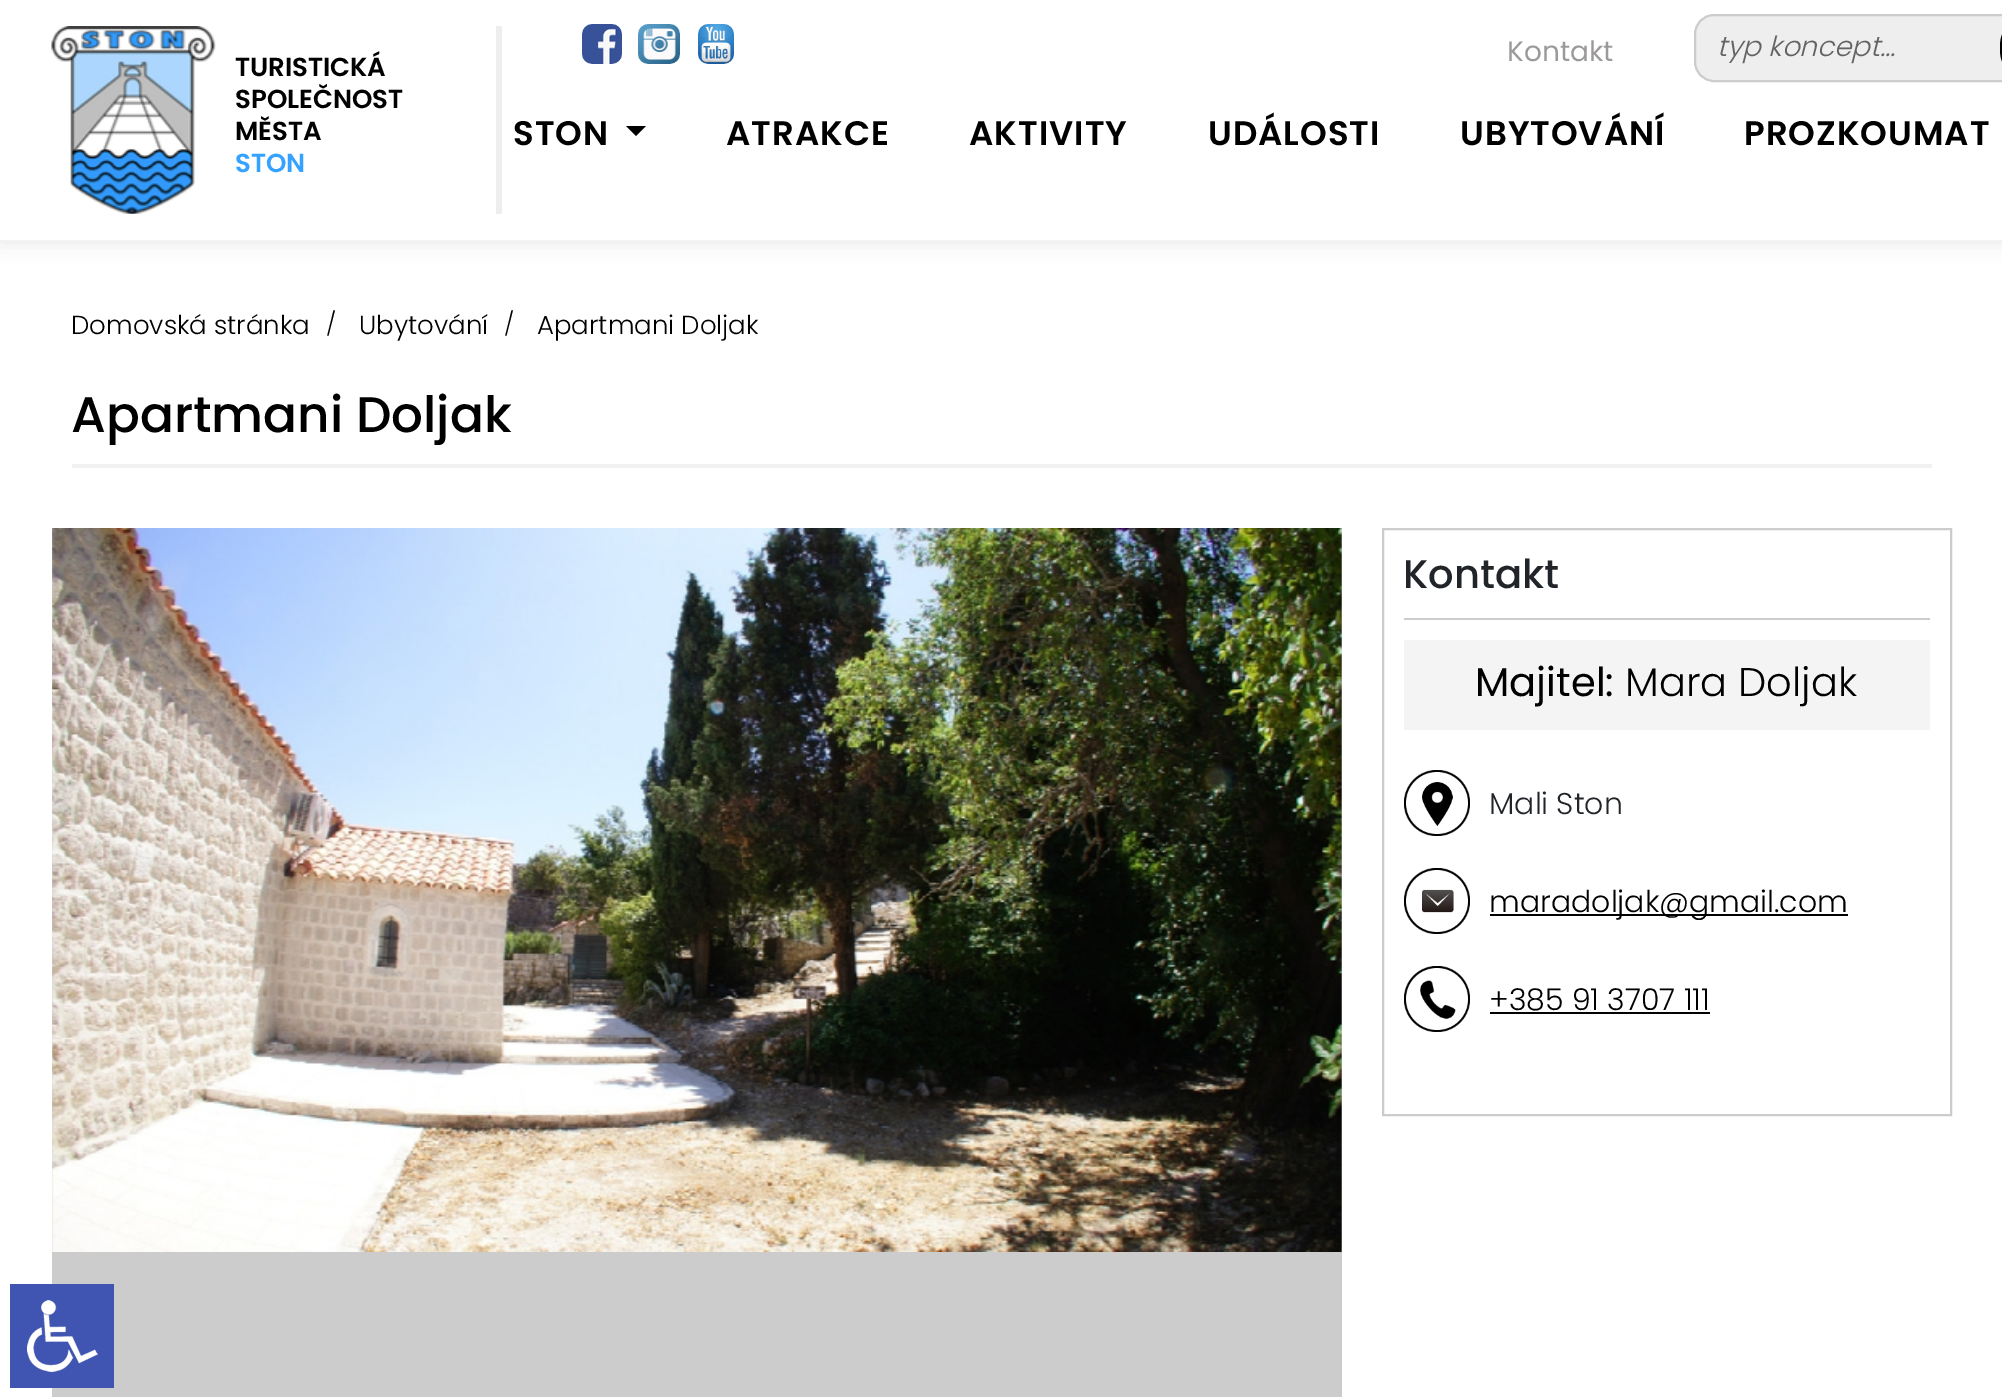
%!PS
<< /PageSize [2002 1397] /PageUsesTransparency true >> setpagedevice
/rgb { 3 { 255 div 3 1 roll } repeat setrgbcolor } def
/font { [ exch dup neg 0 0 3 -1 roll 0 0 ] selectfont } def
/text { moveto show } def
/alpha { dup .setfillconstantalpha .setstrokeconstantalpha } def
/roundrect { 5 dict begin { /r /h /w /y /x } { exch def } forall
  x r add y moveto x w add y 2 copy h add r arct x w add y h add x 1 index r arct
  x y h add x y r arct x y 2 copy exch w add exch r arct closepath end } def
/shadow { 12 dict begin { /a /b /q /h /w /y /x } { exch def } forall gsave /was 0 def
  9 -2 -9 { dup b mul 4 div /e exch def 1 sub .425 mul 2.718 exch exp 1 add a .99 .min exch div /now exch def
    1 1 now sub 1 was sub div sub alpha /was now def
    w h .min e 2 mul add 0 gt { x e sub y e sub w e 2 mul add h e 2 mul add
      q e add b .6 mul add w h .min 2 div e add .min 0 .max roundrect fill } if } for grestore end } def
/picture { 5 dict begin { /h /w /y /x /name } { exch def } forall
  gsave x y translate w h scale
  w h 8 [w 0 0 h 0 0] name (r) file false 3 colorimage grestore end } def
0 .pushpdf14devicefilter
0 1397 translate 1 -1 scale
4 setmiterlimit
255 255 255 rgb
0 0 2002 1397 rectfill
0 0 0 rgb
0 2 2002 240 0 10 0.1 shadow
255 255 255 rgb
0 0 2002 240 rectfill
238 238 238 rgb
496 26 6 188 rectfill
(img_01.rgb) 51 26 165 188 picture
(img_02.rgb) 582 24 40 40 picture
(img_03.rgb) 638 24 42 40 picture
(img_04.rgb) 698 24 36 40 picture
1695 15 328 66 19 roundrect gsave fill grestore
204 204 204 rgb
2 setlinewidth
stroke
0 0 0 rgb
2000 12 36 72 34 roundrect fill
626 126 moveto 20 0 rlineto -10 10 rlineto closepath fill
241 241 241 rgb
72 464 1860 4 rectfill
204 204 204 rgb
52 528 1290 869 rectfill
(img_05.rgb) 52 528 1290 724 picture
1383 529 568 586 rectstroke
1404 618 526 2 rectfill
244 244 244 rgb
1404 640 526 90 rectfill
(img_06.rgb) 1404 770 66 66 picture
(img_07.rgb) 1404 868 66 66 picture
0 0 0 rgb
1490 914 358 2 rectfill
(img_08.rgb) 1404 966 66 66 picture
1490 1012 220 2 rectfill
(img_09.rgb) 10 1284 104 104 picture
/Poppins-SemiBold 26 font
(TURISTICKÁ) 235 76 text
(SPOLEČNOST) 235 108 text
(MĚSTA) 235 140 text
53 162 255 rgb
(STON) 235 172 text
/Poppins-Regular 28 font
155 153 153 rgb
(Kontakt) 1507 61 text
/Poppins-LightItalic 27.75 font
99 99 99 rgb
(typ koncept...) 1717 56 text
/Poppins-SemiBold 34 font
0 0 0 rgb
513 145 moveto 1 0 (STON) ashow
726 145 moveto 1 0 (ATRAKCE) ashow
969 145 moveto 1 0 (AKTIVITY) ashow
1208 145 moveto 1 0 (UDÁLOSTI) ashow
1460 145 moveto 1 0 (UBYTOVÁNÍ) ashow
1744 145 moveto 1 0 (PROZKOUMAT) ashow
/Poppins-Light 26 font
(Domovská stránka) 71 334 text
/Poppins-Light 23 font
(/) 326 332 text
/Poppins-Light 26 font
(Ubytování) 359 334 text
/Poppins-Light 23 font
(/) 504 332 text
/Poppins-Light 26 font
(Apartmani Doljak) 537 334 text
/Poppins-Medium 50 font
(Apartmani Doljak) 71 432 text
/Poppins-Medium 40 font
33 37 41 rgb
(Kontakt) 1403 588 text
/Poppins-Regular 40 font
0 0 0 rgb
(Majitel:) 1475 696 text
/Poppins-Light 40 font
(Mara Doljak) 1625 696 text
/Poppins-Light 30 font
33 37 41 rgb
(Mali Ston) 1489 814 text
0 0 0 rgb
(maradoljak@gmail.com) 1489 912 text
(+385 91 3707 111) 1489 1010 text
.poppdf14devicefilter showpage
